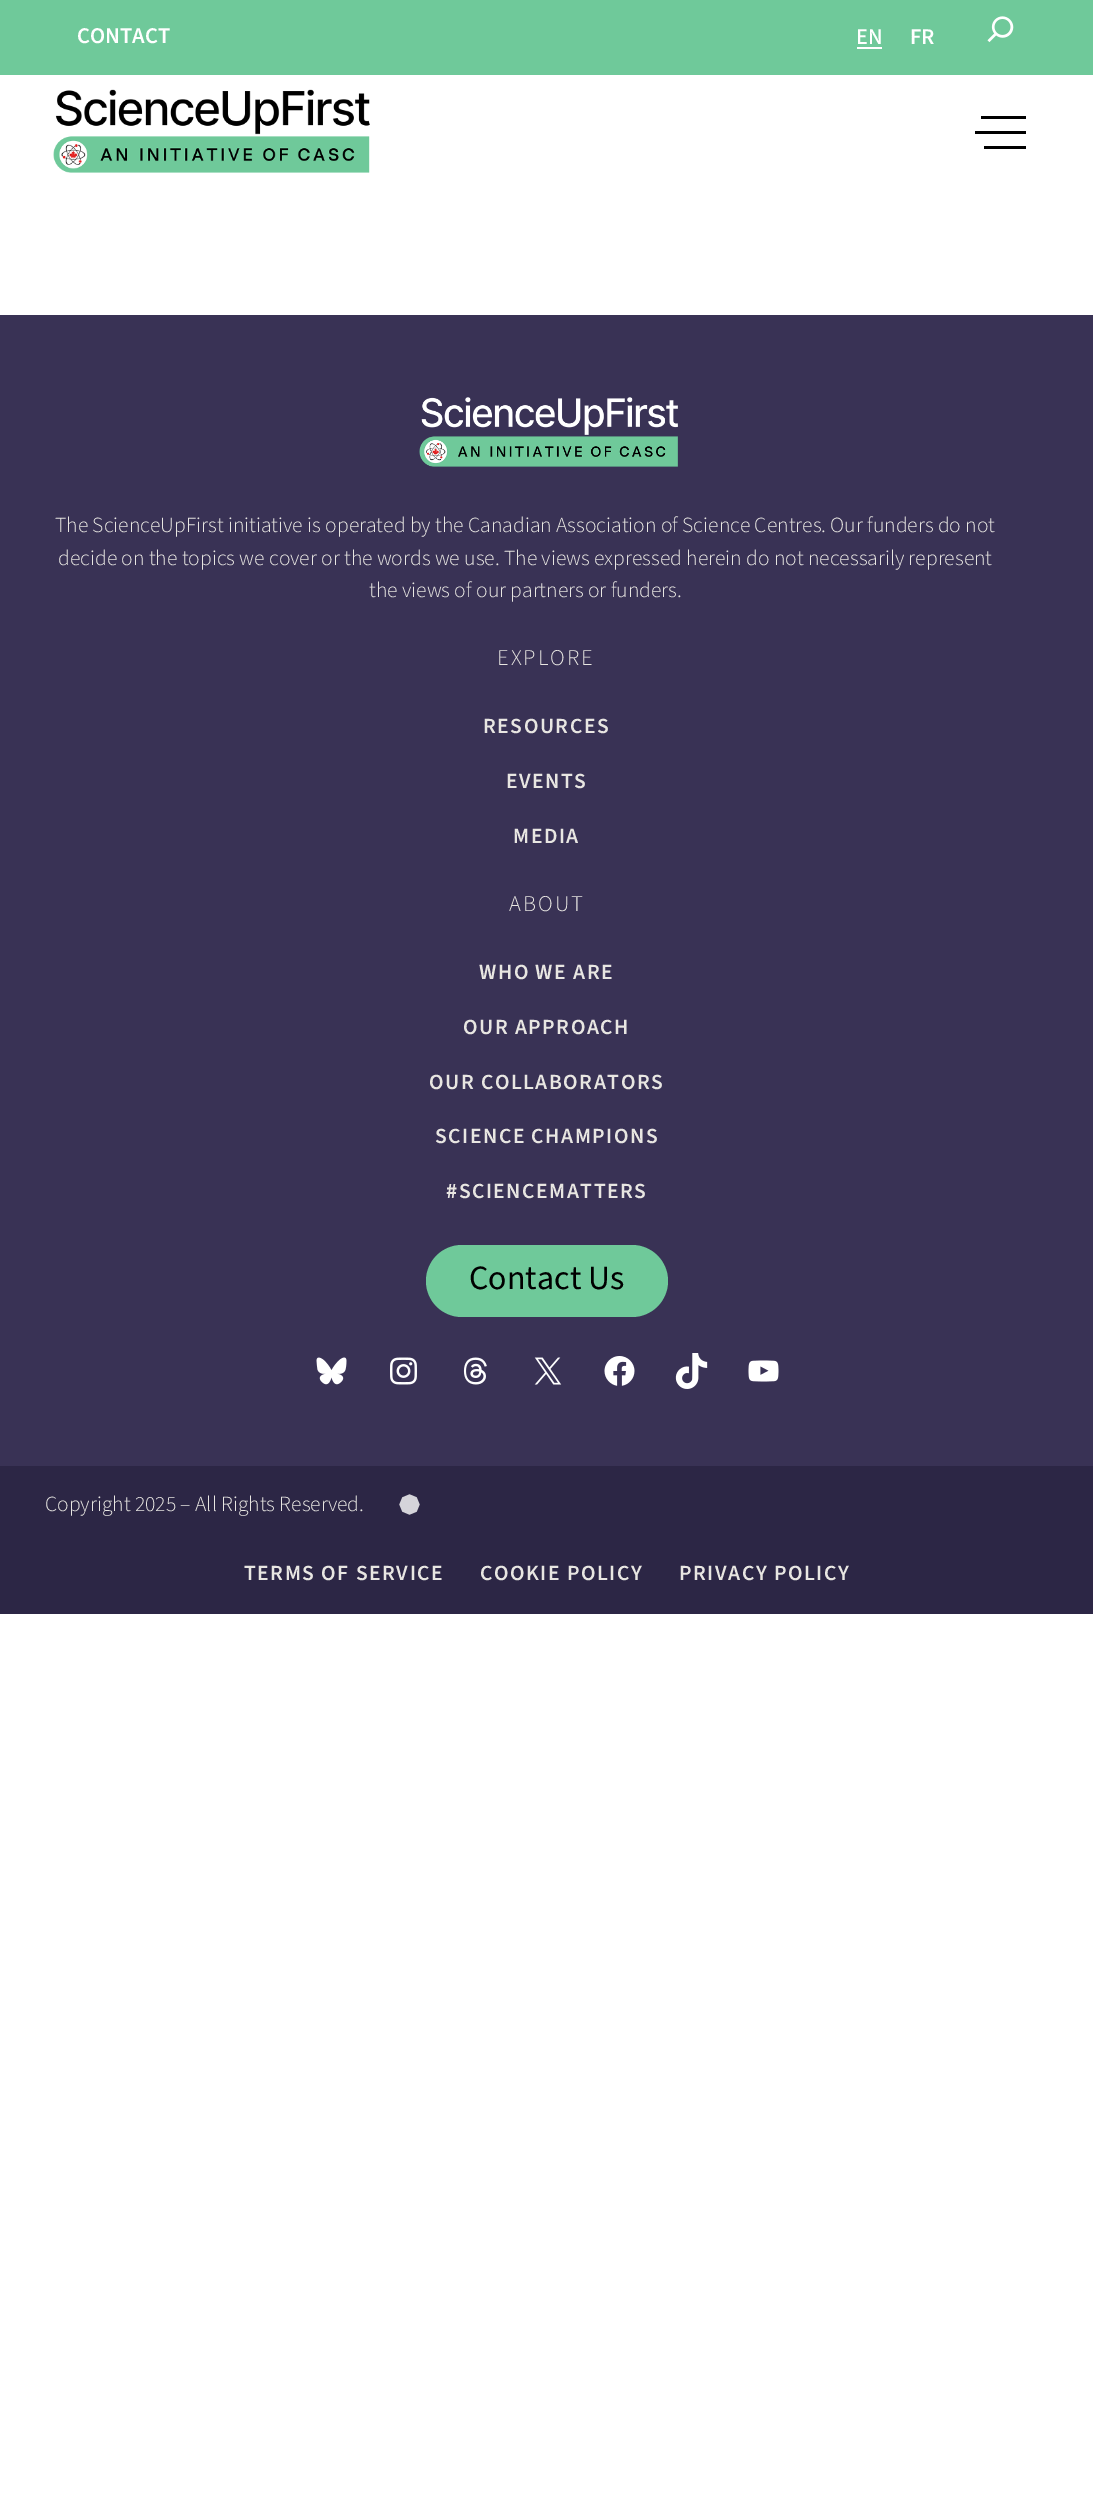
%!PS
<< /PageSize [1093 2508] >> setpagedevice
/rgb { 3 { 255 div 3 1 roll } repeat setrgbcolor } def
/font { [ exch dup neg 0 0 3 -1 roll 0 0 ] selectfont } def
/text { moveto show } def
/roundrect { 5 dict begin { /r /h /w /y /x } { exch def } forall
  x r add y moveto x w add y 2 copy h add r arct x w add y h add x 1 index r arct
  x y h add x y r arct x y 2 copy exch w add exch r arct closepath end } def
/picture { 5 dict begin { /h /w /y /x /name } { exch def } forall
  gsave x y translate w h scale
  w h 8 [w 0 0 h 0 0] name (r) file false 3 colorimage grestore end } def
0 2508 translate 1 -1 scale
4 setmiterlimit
255 255 255 rgb
0 0 1093 2508 rectfill
111 201 154 rgb
0 0 1093 75 rectfill
255 255 255 rgb
857 47 25 2 rectfill
(img_01.rgb) 987 16 27 27 picture
(img_02.rgb) 53 89 317 84 picture
0 0 0 rgb
975 131 51 3 rectfill
981 116 45 3 rectfill
984 146 42 3 rectfill
57 50 85 rgb
0 315 1093 1151 rectfill
(img_03.rgb) 419 397 259 70 picture
111 201 154 rgb
426 1245 242 72 36 roundrect fill
(img_04.rgb) 316 1357 31 28 picture
(img_05.rgb) 390 1357 27 28 picture
(img_06.rgb) 463 1357 24 28 picture
(img_07.rgb) 534 1357 28 28 picture
(img_08.rgb) 604 1356 31 30 picture
(img_09.rgb) 675 1353 33 36 picture
(img_10.rgb) 748 1360 31 22 picture
44 38 69 rgb
0 1466 1093 148 rectfill
(img_11.rgb) 399 1494 21 21 picture
/SourceSans3-SemiBold 22.5 font
255 255 255 rgb
(CONTACT) 77 43 text
/SourceSans3-Medium 22.5 font
(EN) 856 44 text
/SourceSans3-SemiBold 22.5 font
(FR) 910 44 text
/SourceSans3-Light 21.6 font
232 230 226 rgb
(The ScienceUpFirst initiative is operated by the Canadian Association of Science Centres. Our funders do not) 55 532 text
(decide on the topics we cover or the words we use. The views expressed herein do not necessarily represent) 58 565 text
(the views of our partners or funders.) 369 597 text
/SourceSans3-Light 22.5 font
497 665 moveto 2 0 (EXPLORE) ashow
/SourceSans3-SemiBold 21.6 font
483 733 moveto 1.5 0 (RESOURCES) ashow
506 788 moveto 1.5 0 (EVENTS) ashow
513 843 moveto 1.5 0 (MEDIA) ashow
/SourceSans3-Light 22.5 font
509 911 moveto 2 0 (ABOUT) ashow
/SourceSans3-SemiBold 21.6 font
479 979 moveto 1.5 0 (WHO WE ARE) ashow
463 1034 moveto 1.5 0 (OUR APPROACH) ashow
429 1089 moveto 1.5 0 (OUR COLLABORATORS) ashow
435 1143 moveto 1.5 0 (SCIENCE CHAMPIONS) ashow
446 1198 moveto 1.5 0 (#SCIENCEMATTERS) ashow
/SourceSans3-Regular 34 font
0 0 0 rgb
(Contact Us) 469 1289 text
/SourceSans3-Light 21.6 font
232 230 226 rgb
(Copyright 2025 – All Rights Reserved.) 45 1511 text
/SourceSans3-SemiBold 21.6 font
244 1580 moveto 1.5 0 (TERMS OF SERVICE) ashow
480 1580 moveto 1.5 0 (COOKIE POLICY) ashow
679 1580 moveto 1.5 0 (PRIVACY POLICY) ashow
showpage
